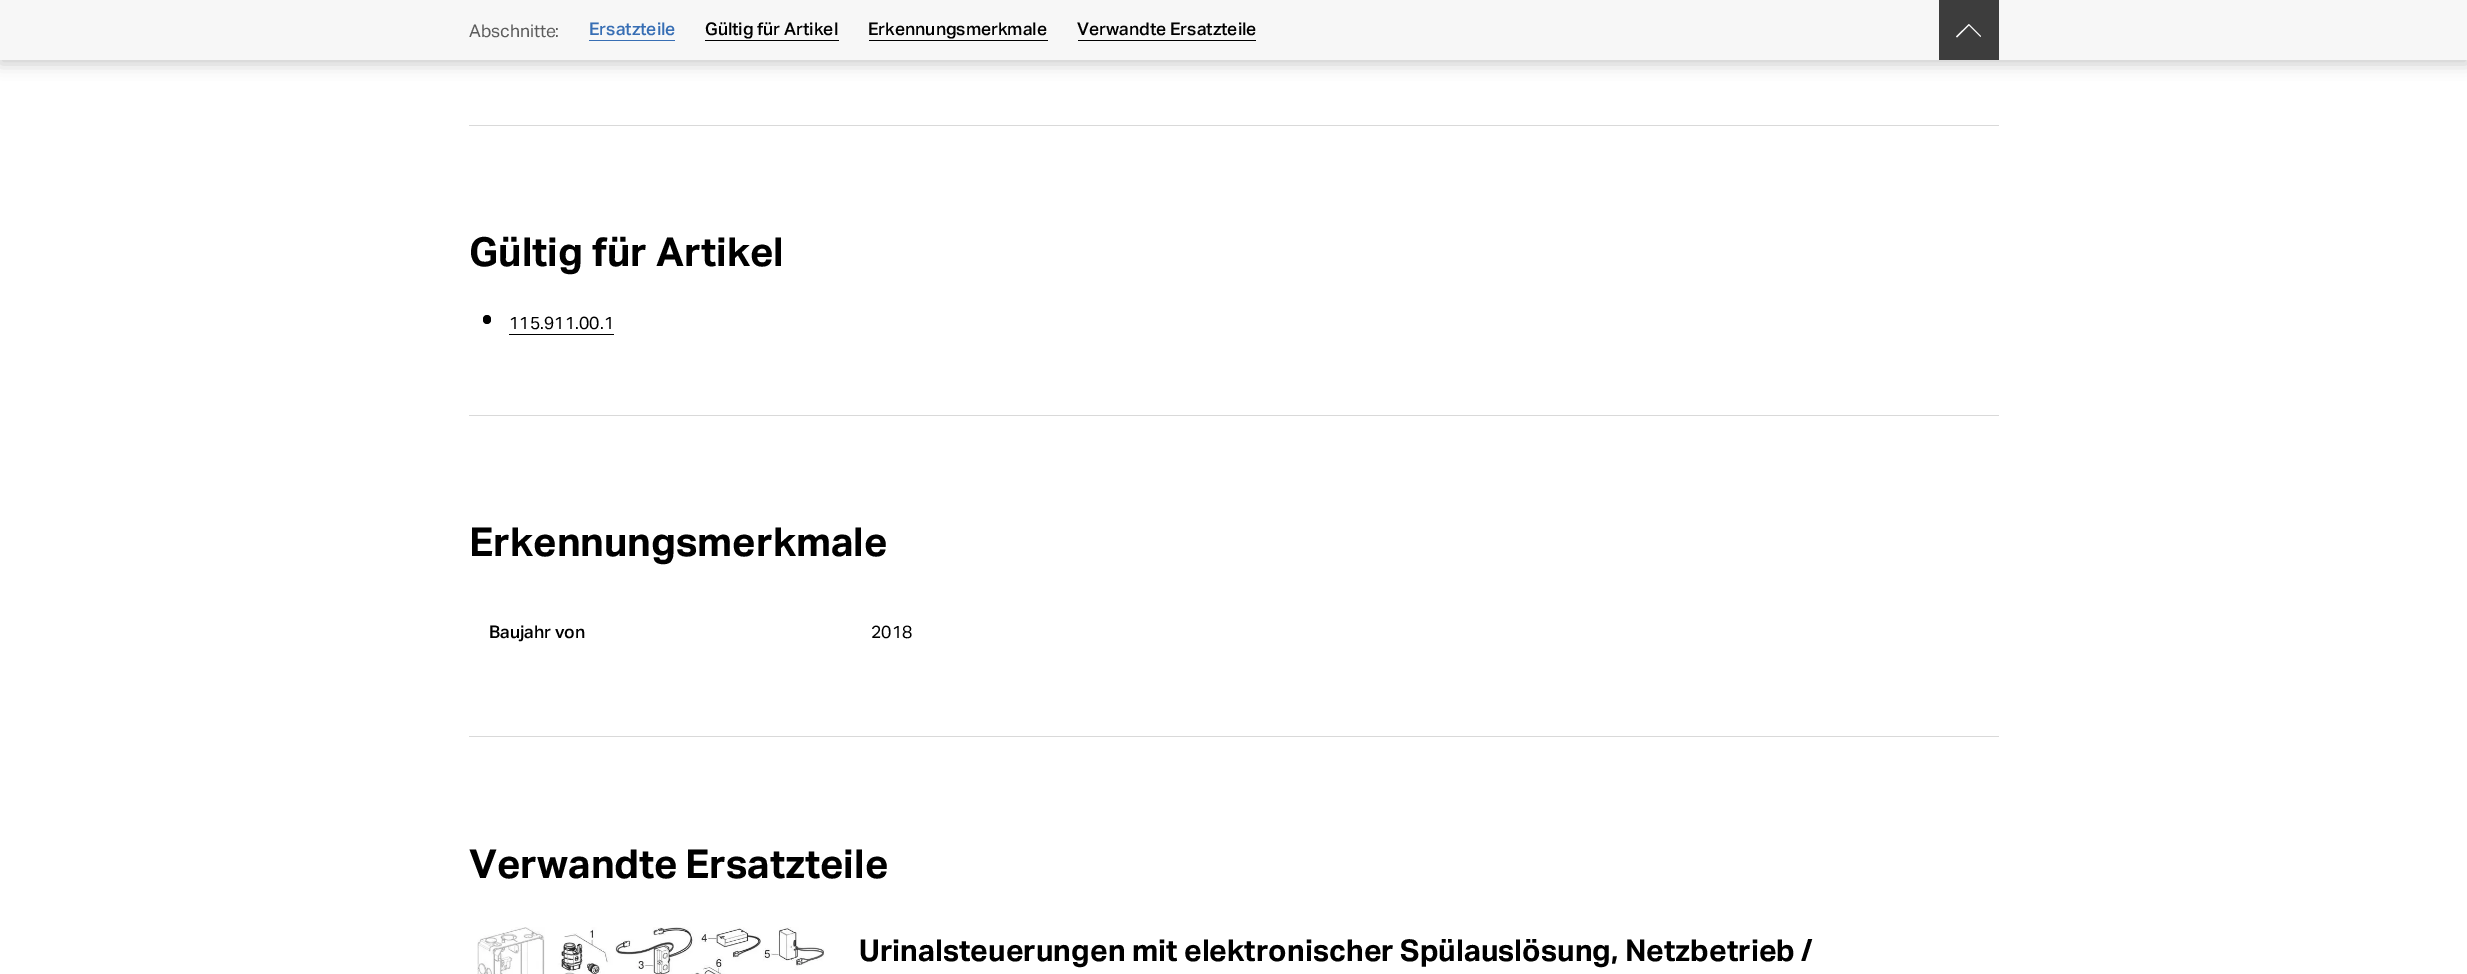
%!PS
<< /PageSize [2467 974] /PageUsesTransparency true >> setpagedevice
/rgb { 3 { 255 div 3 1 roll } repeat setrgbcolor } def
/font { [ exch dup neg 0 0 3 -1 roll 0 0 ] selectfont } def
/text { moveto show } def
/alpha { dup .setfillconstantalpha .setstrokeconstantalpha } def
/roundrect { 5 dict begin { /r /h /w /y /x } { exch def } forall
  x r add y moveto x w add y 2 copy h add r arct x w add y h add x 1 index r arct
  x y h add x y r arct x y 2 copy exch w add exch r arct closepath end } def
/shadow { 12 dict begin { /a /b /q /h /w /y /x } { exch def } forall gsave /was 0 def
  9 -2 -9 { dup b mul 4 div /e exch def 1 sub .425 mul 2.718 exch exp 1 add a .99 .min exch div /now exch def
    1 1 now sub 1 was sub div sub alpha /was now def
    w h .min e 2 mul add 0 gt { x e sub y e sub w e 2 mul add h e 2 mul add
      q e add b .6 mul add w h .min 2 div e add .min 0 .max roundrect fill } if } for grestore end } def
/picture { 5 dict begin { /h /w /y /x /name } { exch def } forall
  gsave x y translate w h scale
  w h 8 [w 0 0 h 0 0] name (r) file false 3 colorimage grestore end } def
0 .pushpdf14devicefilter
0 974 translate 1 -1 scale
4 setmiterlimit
255 255 255 rgb
0 0 2467 974 rectfill
0 0 0 rgb
0 4 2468 60 0 7.5 0.2 shadow
247 247 247 rgb
0 0 2467 60 rectfill
55 110 180 rgb
589 40 86 1 rectfill
0 0 0 rgb
705 40 134 1 rectfill
869 40 179 1 rectfill
1078 40 178 1 rectfill
61 61 61 rgb
1939 0 60 60 rectfill
255 255 255 rgb
1980.5 37 moveto 0.5 -1 rlineto -12 -12 rlineto -13 12.5 rlineto 1 1 rlineto 12 -12 rlineto closepath eofill
217 217 217 rgb
469 125 1530 1 rectfill
0 0 0 rgb
483 315 8 9 4 roundrect fill
509 334 105 1 rectfill
217 217 217 rgb
469 415 1530 1 rectfill
469 736 1530 1 rectfill
(img_01.rgb) 477 927 348 47 picture
/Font-Regular 17.5 font
92 92 92 rgb
(Abschnitte) 469 37 text
(:) 555 37 text
/Font-Medium 17.5 font
55 110 180 rgb
(Ersatzteile) 589 35 text
0 0 0 rgb
(Gültig für Artikel) 705 35 text
(Erkennungsmerkmale) 868 35 text
(Verwandte Ersatzteile) 1077 35 text
/Font-Bold 40 font
(Gültig für Artikel) 469 266 text
/Font-Regular 17.5 font
(115.911.00.1) 509 329 text
/Font-Bold 40 font
(Erkennungsmerkmale) 469 556 text
/Font-Medium 17.5 font
(Baujahr von) 489 638 text
/Font-Regular 17.5 font
(2018) 871 638 text
/Font-Bold 40 font
469 878 moveto -2 0 32 (Verwandte Ersatzteile) widthshow
/Font-Bold 30 font
859 961 moveto -0.25 0 32 (Urinalsteuerungen mit elektronischer Spülauslösung, Netzbetrieb /) widthshow
.poppdf14devicefilter showpage
